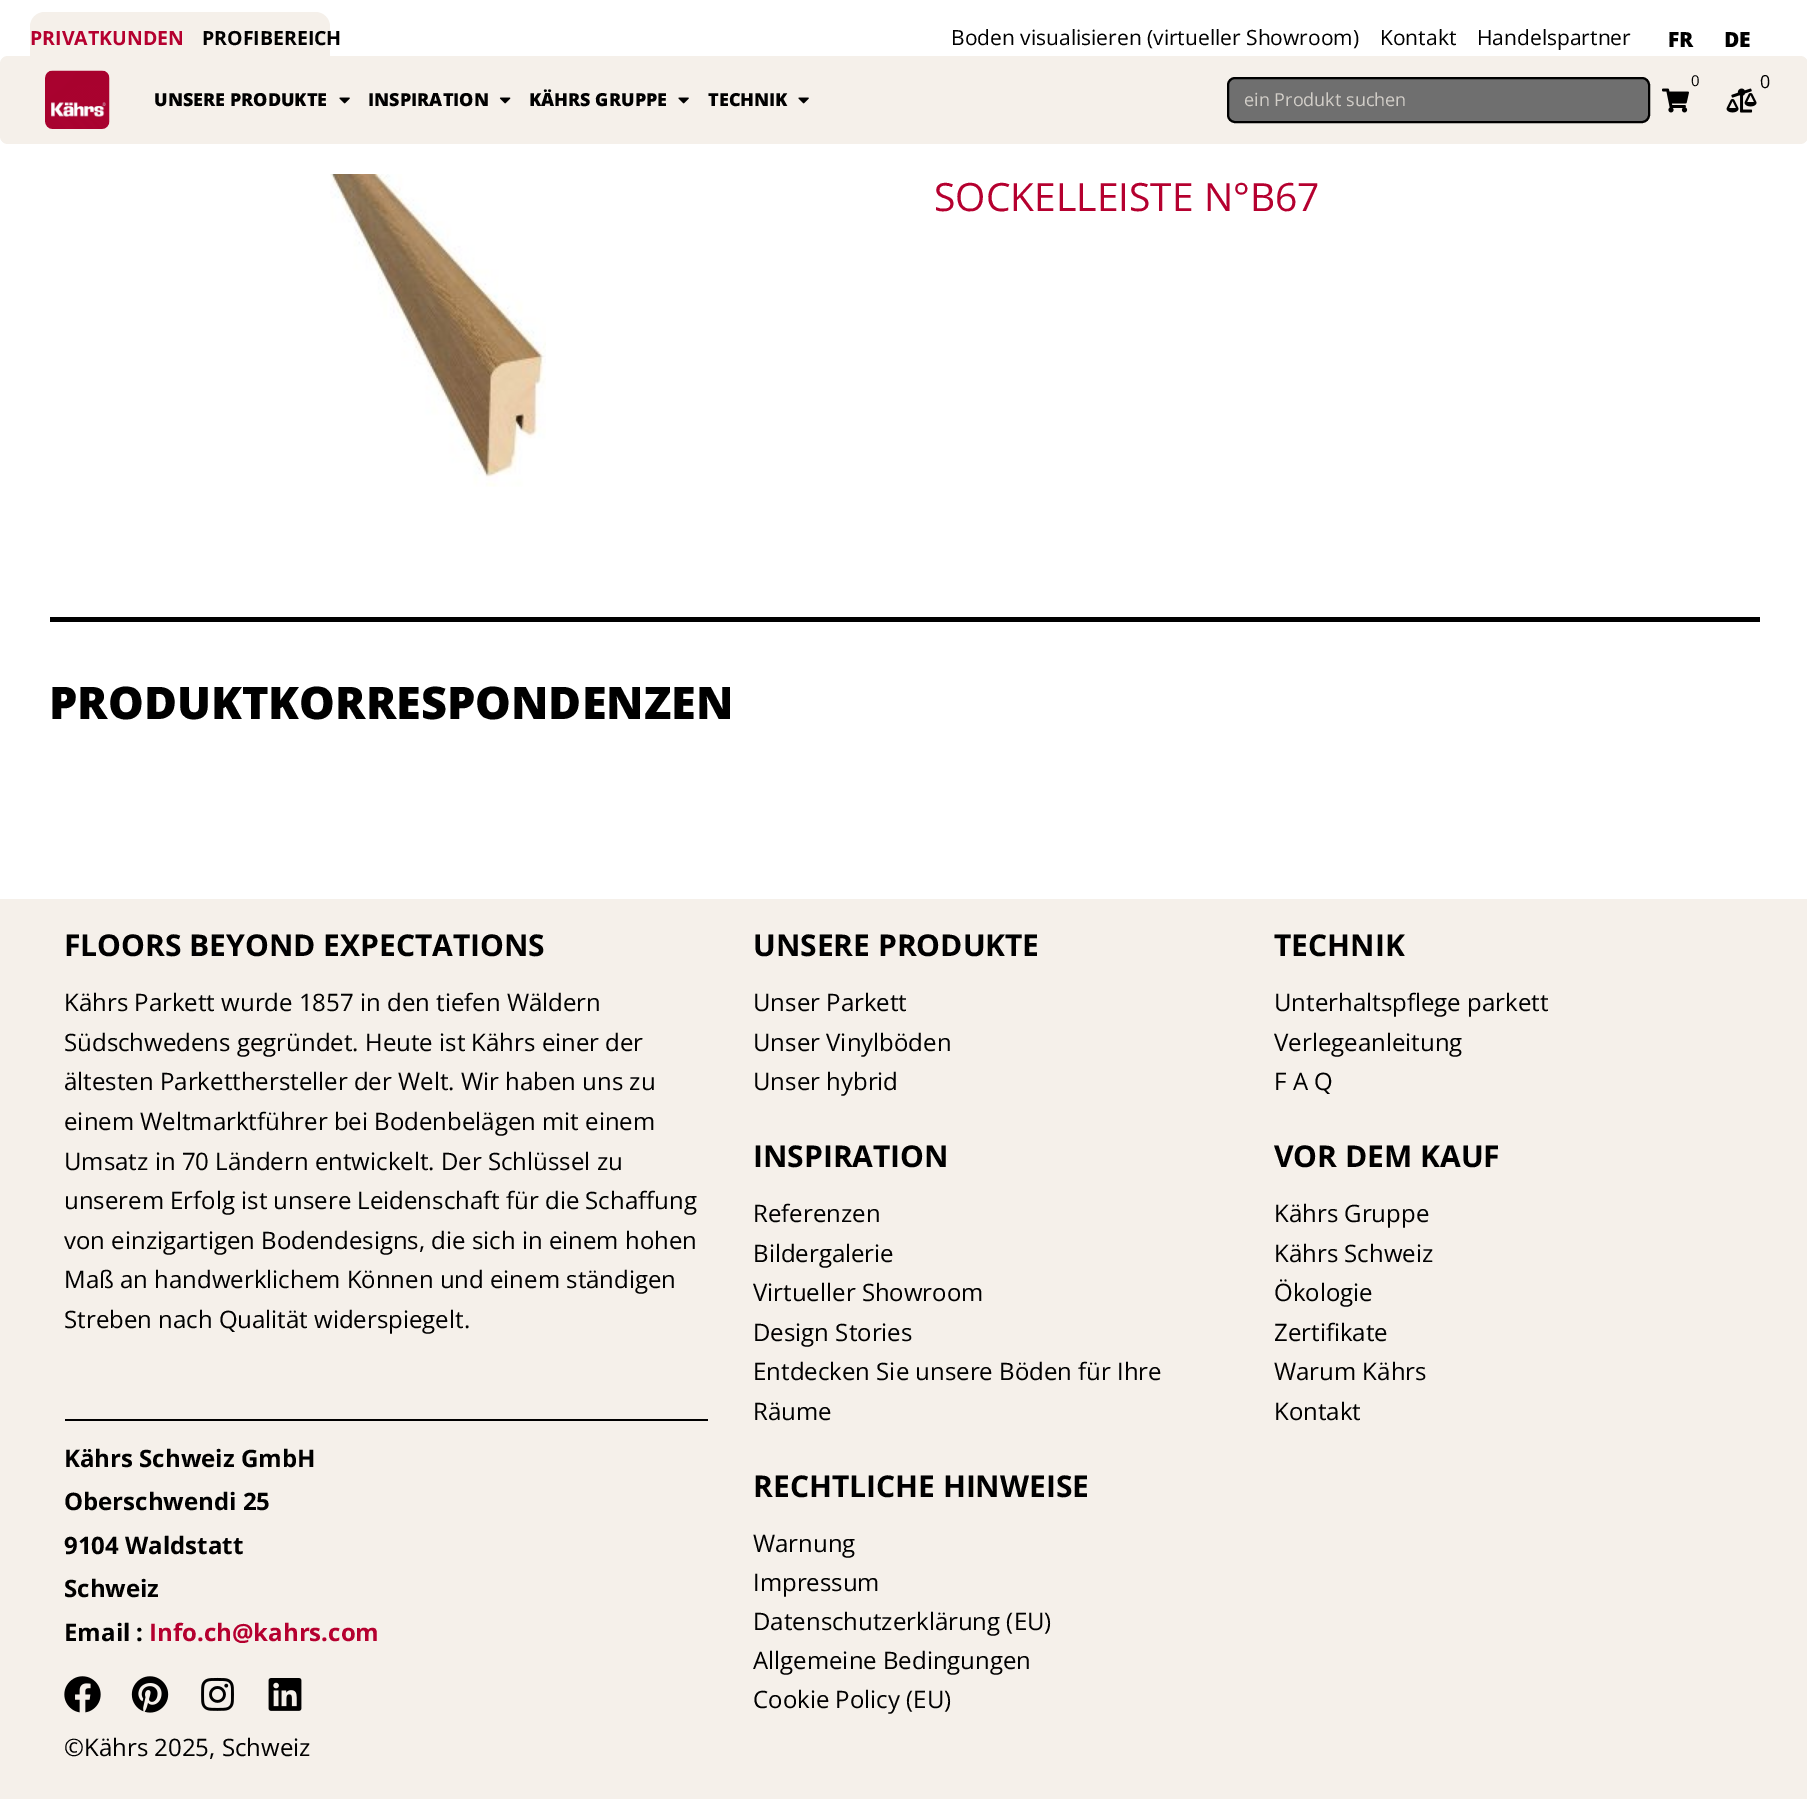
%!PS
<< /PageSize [1807 1799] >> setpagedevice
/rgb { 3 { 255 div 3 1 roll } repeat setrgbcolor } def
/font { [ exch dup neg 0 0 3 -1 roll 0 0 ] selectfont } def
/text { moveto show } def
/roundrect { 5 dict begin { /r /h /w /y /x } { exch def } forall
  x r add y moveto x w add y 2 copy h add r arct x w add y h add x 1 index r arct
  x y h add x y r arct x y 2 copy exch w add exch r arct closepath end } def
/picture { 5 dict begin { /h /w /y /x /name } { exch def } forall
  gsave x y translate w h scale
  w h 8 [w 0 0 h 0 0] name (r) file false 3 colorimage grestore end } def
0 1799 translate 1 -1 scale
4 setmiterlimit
255 255 255 rgb
0 0 1807 1799 rectfill
245 240 234 rgb
45 12 moveto 270 0 rlineto 8.5 0 15 6.5 15 15 rcurveto 0 29 rlineto -300 0 rlineto 0 -29 rlineto 0 -8.5 6.5 -15 15 -15 rcurveto closepath fill
0 56 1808 88 8 roundrect fill
(img_01.rgb) 45 70 65 59 picture
(img_02.rgb) 339 97 11 7 picture
(img_03.rgb) 499 97 12 7 picture
(img_02.rgb) 678 97 11 7 picture
(img_02.rgb) 798 97 11 7 picture
(img_04.rgb) 1662 88 27 25 picture
(img_05.rgb) 1726 88 31 25 picture
111 111 111 rgb
1228 78 421 44 7 roundrect gsave fill grestore
0 0 0 rgb
2 setlinewidth
stroke
(img_06.rgb) 330 174 216 313 picture
50 617 1710 5 rectfill
245 240 234 rgb
0 899 1807 900 rectfill
0 0 0 rgb
65 1419 643 2 rectfill
(img_07.rgb) 64 1676 37 37 picture
(img_08.rgb) 131 1676 38 37 picture
(img_09.rgb) 201 1677 33 34 picture
(img_10.rgb) 268 1678 34 33 picture
/OpenSans-Bold 19.5 font
181 0 47 rgb
(PRIVATKUNDEN) 30 45 text
0 0 0 rgb
(PROFIBEREICH) 202 45 text
/OpenSans-Regular 21 font
(Boden visualisieren \(virtueller Showroom\)) 951 45 text
(Kontakt) 1380 45 text
(Handelspartner) 1477 45 text
/OpenSans-ExtraBold 21 font
(FR) 1668 47 text
(DE) 1724 47 text
/OpenSans-ExtraBold 18 font
(UNSERE PRODUKTE) 154 106 text
(INSPIRATION) 368 106 text
(KÄHRS GRUPPE) 529 106 text
(TECHNIK) 708 106 text
/OpenSans-Regular 15 font
(0) 1691 86 text
/OpenSans-Regular 18 font
(0) 1760 88 text
210 206 200 rgb
(ein Produkt suchen) 1244 106 text
/OpenSans-Regular 39 font
181 0 47 rgb
(SOCKELLEISTE N°B67) 934 211 text
/OpenSans-ExtraBold 45 font
0 0 0 rgb
(PRODUKTKORRESPONDENZEN) 49 719 text
/OpenSans-Bold 30 font
(FLOORS BEYOND EXPECTATIONS) 64 956 text
/OpenSans-Regular 24 font
(Kährs Parkett wurde 1857 in den tiefen Wäldern) 64 1011 text
(Südschwedens gegründet. Heute ist Kährs einer der) 64 1051 text
(ältesten Parketthersteller der Welt. Wir haben uns zu) 64 1090 text
(einem Weltmarktführer bei Bodenbelägen mit einem) 64 1130 text
(Umsatz in 70 Ländern entwickelt. Der Schlüssel zu) 64 1170 text
(unserem Erfolg ist unsere Leidenschaft für die Schaffung) 64 1209 text
(von einzigartigen Bodendesigns, die sich in einem hohen) 64 1249 text
(Maß an handwerklichem Können und einem ständigen) 64 1288 text
(Streben nach Qualität widerspiegelt.) 64 1328 text
/OpenSans-Bold 24 font
(Kährs Schweiz GmbH) 64 1467 text
(Oberschwendi 25) 64 1510 text
(9104 Waldstatt) 64 1554 text
(Schweiz) 64 1597 text
(Email :) 64 1641 text
181 0 47 rgb
(Info.ch@kahrs.com) 149 1641 text
/OpenSans-Regular 24 font
0 0 0 rgb
(©Kährs 2025, Schweiz) 64 1756 text
/OpenSans-Bold 30 font
(UNSERE PRODUKTE) 753 956 text
/OpenSans-Regular 24 font
(Unser Parkett) 753 1011 text
(Unser Vinylböden) 753 1051 text
(Unser hybrid) 753 1090 text
/OpenSans-Bold 30 font
(INSPIRATION) 753 1167 text
/OpenSans-Regular 24 font
(Referenzen) 753 1222 text
(Bildergalerie) 753 1262 text
(Virtueller Showroom) 753 1301 text
(Design Stories) 753 1341 text
(Entdecken Sie unsere Böden für Ihre) 753 1380 text
(Räume) 753 1420 text
/OpenSans-Bold 30 font
(RECHTLICHE HINWEISE) 753 1497 text
/OpenSans-Regular 24 font
(Warnung) 753 1552 text
(Impressum) 753 1591 text
(Datenschutzerklärung \(EU\)) 753 1630 text
(Allgemeine Bedingungen) 753 1669 text
(Cookie Policy \(EU\)) 753 1708 text
/OpenSans-Bold 30 font
(TECHNIK) 1274 956 text
/OpenSans-Regular 24 font
(Unterhaltspflege parkett) 1274 1011 text
(Verlegeanleitung) 1274 1051 text
(F A Q) 1274 1090 text
/OpenSans-Bold 30 font
(VOR DEM KAUF) 1274 1167 text
/OpenSans-Regular 24 font
(Kährs Gruppe) 1274 1222 text
(Kährs Schweiz) 1274 1262 text
(Ökologie) 1274 1301 text
(Zertifikate) 1274 1341 text
(Warum Kährs) 1274 1380 text
(Kontakt) 1274 1420 text
showpage
